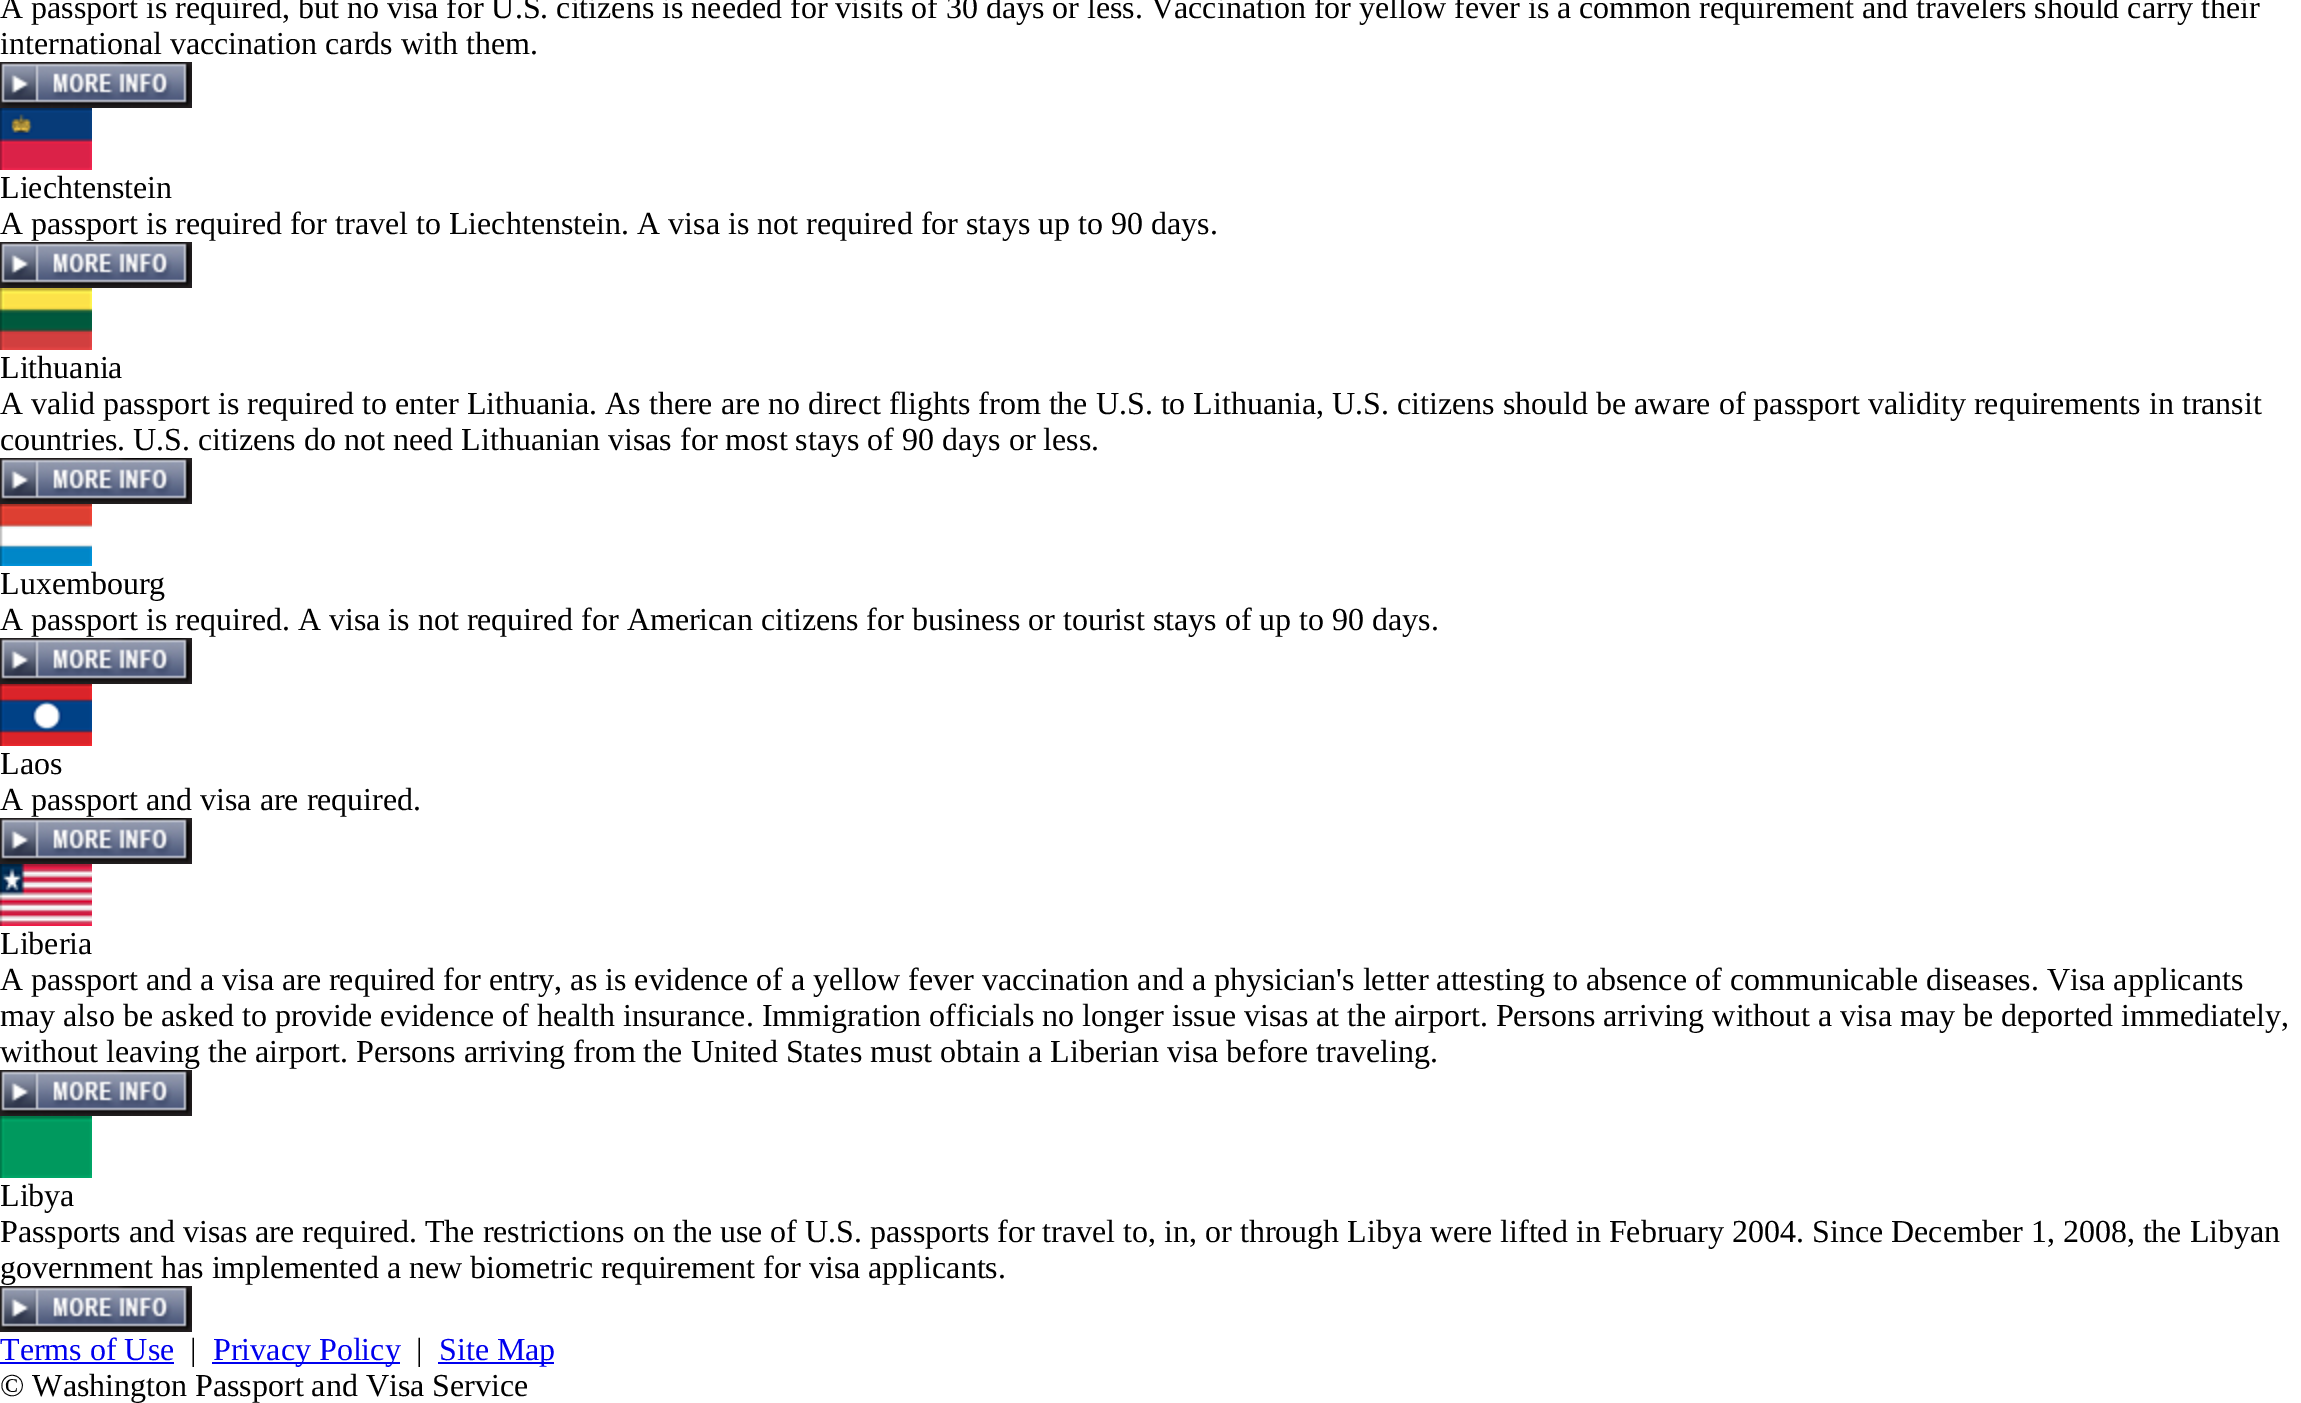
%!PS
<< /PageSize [2301 1403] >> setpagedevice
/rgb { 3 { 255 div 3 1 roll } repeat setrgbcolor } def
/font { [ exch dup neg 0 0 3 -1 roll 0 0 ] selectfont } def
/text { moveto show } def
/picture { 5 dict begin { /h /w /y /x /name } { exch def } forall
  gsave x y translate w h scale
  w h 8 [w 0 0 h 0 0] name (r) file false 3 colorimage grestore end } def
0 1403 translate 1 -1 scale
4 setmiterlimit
255 255 255 rgb
0 0 2301 1403 rectfill
(img_01.rgb) 0 62 192 46 picture
(img_02.rgb) 0 108 92 62 picture
(img_01.rgb) 0 242 192 46 picture
(img_03.rgb) 0 288 92 62 picture
(img_01.rgb) 0 458 192 46 picture
(img_04.rgb) 0 504 92 62 picture
(img_01.rgb) 0 638 192 46 picture
(img_05.rgb) 0 684 92 62 picture
(img_01.rgb) 0 818 192 46 picture
(img_06.rgb) 0 864 92 62 picture
(img_01.rgb) 0 1070 192 46 picture
(img_07.rgb) 0 1116 92 62 picture
(img_01.rgb) 0 1286 192 46 picture
0 0 238 rgb
0 1362 174 2 rectfill
212 1362 188 2 rectfill
438 1362 116 2 rectfill
/LiberationSerif-Regular 32 font
0 0 0 rgb
(A passport is required, but no visa for U.S. citizens is needed for visits of 30 days or less. Vaccination for yellow fever is a common requirement and travelers should carry their) 0 18 text
(international vaccination cards with them.) 0 54 text
(Liechtenstein) 0 198 text
(A passport is required for travel to Liechtenstein. A visa is not required for stays up to 90 days.) 0 234 text
(Lithuania) 0 378 text
(A valid passport is required to enter Lithuania. As there are no direct flights from the U.S. to Lithuania, U.S. citizens should be aware of passport validity requirements in transit) 0 414 text
(countries. U.S. citizens do not need Lithuanian visas for most stays of 90 days or less.) 0 450 text
(Luxembourg) 0 594 text
(A passport is required. A visa is not required for American citizens for business or tourist stays of up to 90 days.) 0 630 text
(Laos) 0 774 text
(A passport and visa are required.) 0 810 text
(Liberia) 0 954 text
(A passport and a visa are required for entry, as is evidence of a yellow fever vaccination and a physician's letter attesting to absence of communicable diseases. Visa applicants) 0 990 text
(may also be asked to provide evidence of health insurance. Immigration officials no longer issue visas at the airport. Persons arriving without a visa may be deported immediately,) 0 1026 text
(without leaving the airport. Persons arriving from the United States must obtain a Liberian visa before traveling.) 0 1062 text
(Libya) 0 1206 text
(Passports and visas are required. The restrictions on the use of U.S. passports for travel to, in, or through Libya were lifted in February 2004. Since December 1, 2008, the Libyan) 0 1242 text
(government has implemented a new biometric requirement for visa applicants.) 0 1278 text
0 0 238 rgb
(Terms of Use) 0 1360 text
0 0 0 rgb
(|) 190 1360 text
0 0 238 rgb
(Privacy Policy) 213 1360 text
0 0 0 rgb
(|) 416 1360 text
0 0 238 rgb
(Site Map) 439 1360 text
0 0 0 rgb
(© Washington Passport and Visa Service) 0 1396 text
showpage
